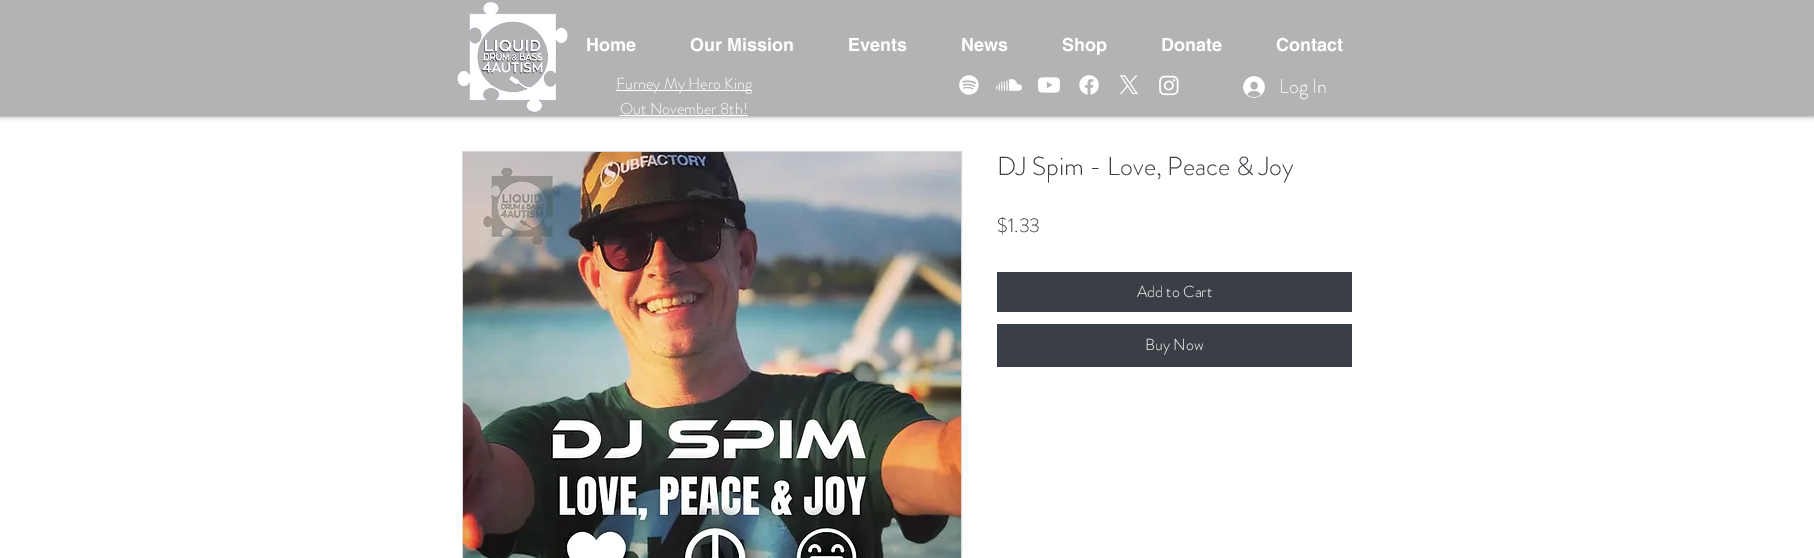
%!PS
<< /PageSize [1814 558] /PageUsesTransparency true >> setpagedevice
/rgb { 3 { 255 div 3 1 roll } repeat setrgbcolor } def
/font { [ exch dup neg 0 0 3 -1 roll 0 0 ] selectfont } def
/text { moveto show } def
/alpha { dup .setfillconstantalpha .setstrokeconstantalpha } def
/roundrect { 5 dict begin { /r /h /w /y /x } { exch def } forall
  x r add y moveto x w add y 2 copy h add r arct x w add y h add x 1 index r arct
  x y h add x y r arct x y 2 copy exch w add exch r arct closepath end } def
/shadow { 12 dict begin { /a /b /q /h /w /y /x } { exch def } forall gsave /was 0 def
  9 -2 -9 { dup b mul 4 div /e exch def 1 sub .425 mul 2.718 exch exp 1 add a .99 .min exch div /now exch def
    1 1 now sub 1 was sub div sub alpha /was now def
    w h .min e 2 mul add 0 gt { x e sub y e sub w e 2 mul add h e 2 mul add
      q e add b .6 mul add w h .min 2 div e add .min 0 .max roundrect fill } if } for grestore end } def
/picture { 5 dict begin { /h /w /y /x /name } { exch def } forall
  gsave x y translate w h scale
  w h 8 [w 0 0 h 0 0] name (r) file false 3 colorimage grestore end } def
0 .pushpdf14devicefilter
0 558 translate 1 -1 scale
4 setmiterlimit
255 255 255 rgb
0 0 1814 558 rectfill
0 0 0 rgb
0 0 1814 116 0 2.5 0.5 shadow
179 179 179 rgb
0 0 1814 116 rectfill
(img_01.rgb) 457 1 111 112 picture
255 255 255 rgb
616 90 136 1 rectfill
620 115 128 1 rectfill
(img_02.rgb) 959 75 20 20 picture
(img_03.rgb) 996 79 26 12 picture
(img_04.rgb) 1037 77 24 16 picture
(img_05.rgb) 1079 75 20 20 picture
(img_06.rgb) 1119 75 19 20 picture
(img_07.rgb) 1159 75 20 21 picture
(img_08.rgb) 1243 76 22 22 picture
216 216 216 rgb
462.5 151.5 499 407 rectstroke
(img_09.rgb) 463 152 498 406 picture
57 63 68 rgb
997 272 355 40 rectfill
997 324 355 43 rectfill
/helvetica-Bold 18 font
255 255 255 rgb
(Home) 586 51 text
(Our Mission) 690 51 text
(Events) 848 51 text
(News) 961 51 text
(Shop) 1062 51 text
(Donate) 1161 51 text
(Contact) 1276 51 text
/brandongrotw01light-Light 16 font
(Furney My Hero King) 616 89 text
(Out November 8th!) 620 114 text
/brandongrotw01light-Light 20 font
(Log In) 1279 93 text
/brandongrotw01light-Light 26 font
57 63 68 rgb
(DJ Spim - Love, Peace & Joy) 997 175 text
/brandongrotw01light-Light 20 font
($1.33) 997 232 text
/brandongrotw01light-Light 16 font
255 255 255 rgb
(Add to Cart) 1137 297 text
(Buy Now) 1145 350 text
.poppdf14devicefilter showpage
